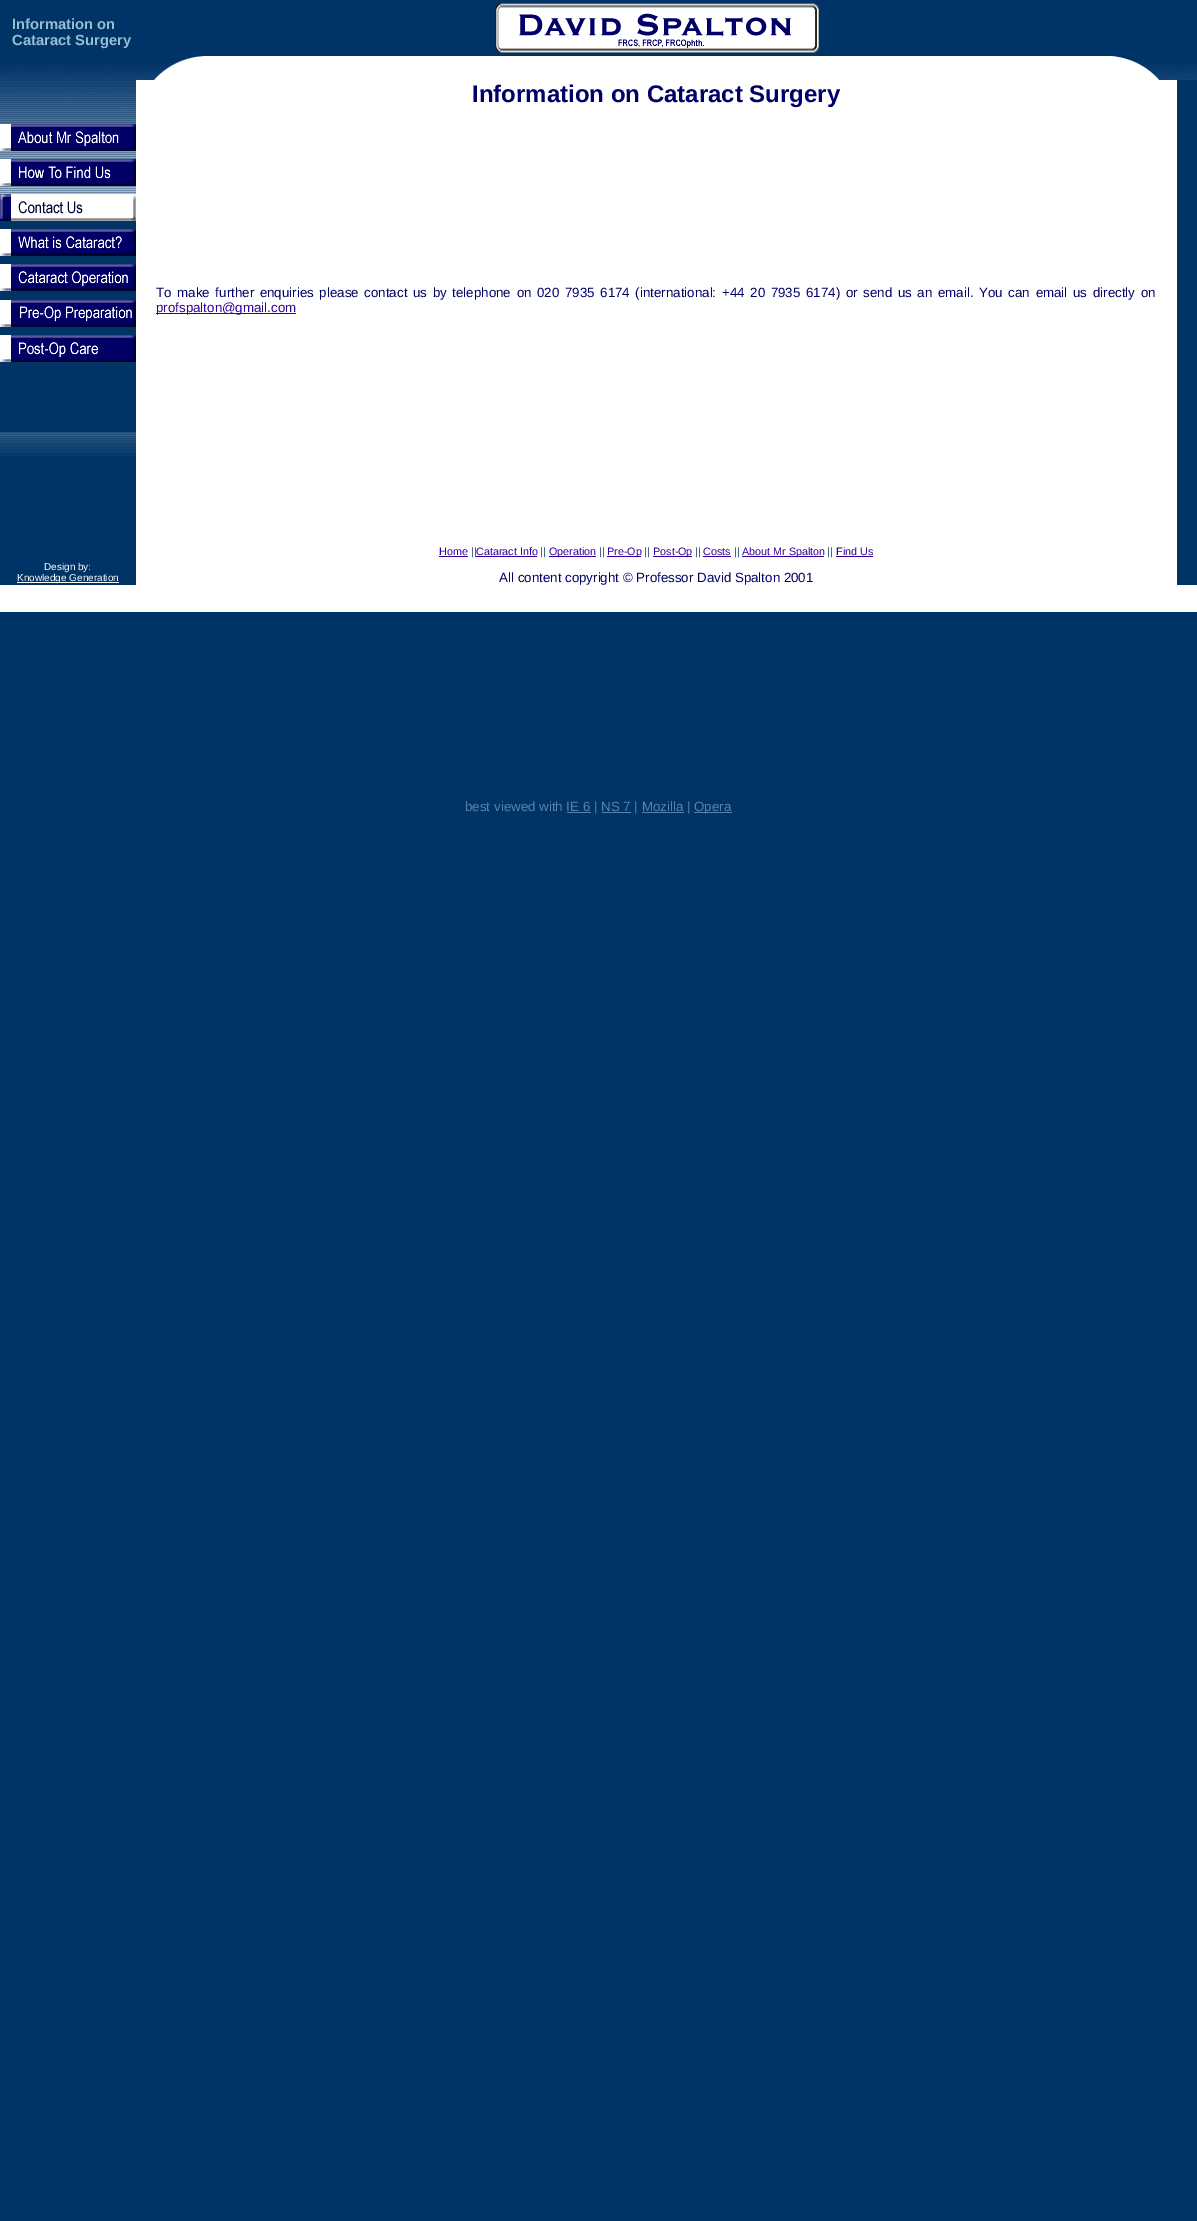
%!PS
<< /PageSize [1197 2221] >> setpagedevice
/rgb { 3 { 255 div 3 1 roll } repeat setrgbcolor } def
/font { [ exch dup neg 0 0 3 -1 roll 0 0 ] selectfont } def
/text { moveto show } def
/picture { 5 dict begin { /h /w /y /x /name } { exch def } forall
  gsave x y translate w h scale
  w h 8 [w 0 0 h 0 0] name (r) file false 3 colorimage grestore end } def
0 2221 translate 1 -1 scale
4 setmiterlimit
0 51 102 rgb
0 0 1197 2221 rectfill
255 255 255 rgb
204 56 905 24 rectfill
(img_01.rgb) 495 3 324 50 picture
(img_02.rgb) 0 56 204 24 picture
(img_03.rgb) 1109 56 88 24 picture
(img_04.rgb) 0 80 136 44 picture
(img_05.rgb) 0 124 136 27 picture
(img_06.rgb) 0 151 136 8 picture
(img_07.rgb) 0 159 136 27 picture
(img_08.rgb) 0 186 136 8 picture
(img_09.rgb) 0 194 136 27 picture
(img_10.rgb) 0 229 136 27 picture
(img_11.rgb) 0 264 136 27 picture
(img_12.rgb) 0 300 136 27 picture
(img_13.rgb) 0 335 136 27 picture
(img_14.rgb) 0 432 136 24 picture
17 582 102 1 rectfill
136 80 1041 505 rectfill
51 0 153 rgb
156 313 140 1 rectfill
439 556 29 1 rectfill
476 556 61 1 rectfill
549 556 47 1 rectfill
607 556 34 1 rectfill
653 556 39 1 rectfill
703 556 28 1 rectfill
742 556 82 1 rectfill
836 556 37 1 rectfill
255 255 255 rgb
0 585 1197 27 rectfill
89 131 173 rgb
694 812 38 1 rectfill
567 812 24 1 rectfill
602 812 29 1 rectfill
642 812 42 1 rectfill
/LiberationSans-Bold 14.75 font
151 189 210 rgb
(Information on) 12 29 text
(Cataract Surgery) 12 45 text
/LiberationSans-Regular 10 font
255 255 255 rgb
(Design by:) 44 570 text
(Knowledge Generation) 17 581 text
/LiberationSans-Bold 24 font
0 0 102 rgb
(Information on Cataract Surgery) 472 102 text
/LiberationSans-Regular 13.33 font
156 297 moveto 1.95 0 32 (To make further enquiries please contact us by telephone on 020 7935 6174 \(international: +44 20 7935 6174\) or send us an email. You can email us directly on) widthshow
51 0 153 rgb
(profspalton@gmail.com) 156 312 text
/LiberationSans-Regular 10.75 font
(Home) 439 555 text
0 51 102 rgb
(||) 471 555 text
51 0 153 rgb
(Cataract Info) 476 555 text
0 51 102 rgb
(||) 540 555 text
51 0 153 rgb
(Operation) 549 555 text
0 51 102 rgb
(||) 599 555 text
51 0 153 rgb
(Pre-Op) 607 555 text
0 51 102 rgb
(||) 644 555 text
51 0 153 rgb
(Post-Op) 653 555 text
0 51 102 rgb
(||) 695 555 text
51 0 153 rgb
(Costs) 703 555 text
0 51 102 rgb
(||) 734 555 text
51 0 153 rgb
(About Mr Spalton) 742 555 text
0 51 102 rgb
(||) 827 555 text
51 0 153 rgb
(Find Us) 836 555 text
/LiberationSans-Regular 13.33 font
0 0 102 rgb
(All content copyright © Professor David Spalton 2001) 499 582 text
89 131 173 rgb
(best viewed with IE 6 | NS 7 | Mozilla |) 465 811 text
(Opera) 694 811 text
showpage
